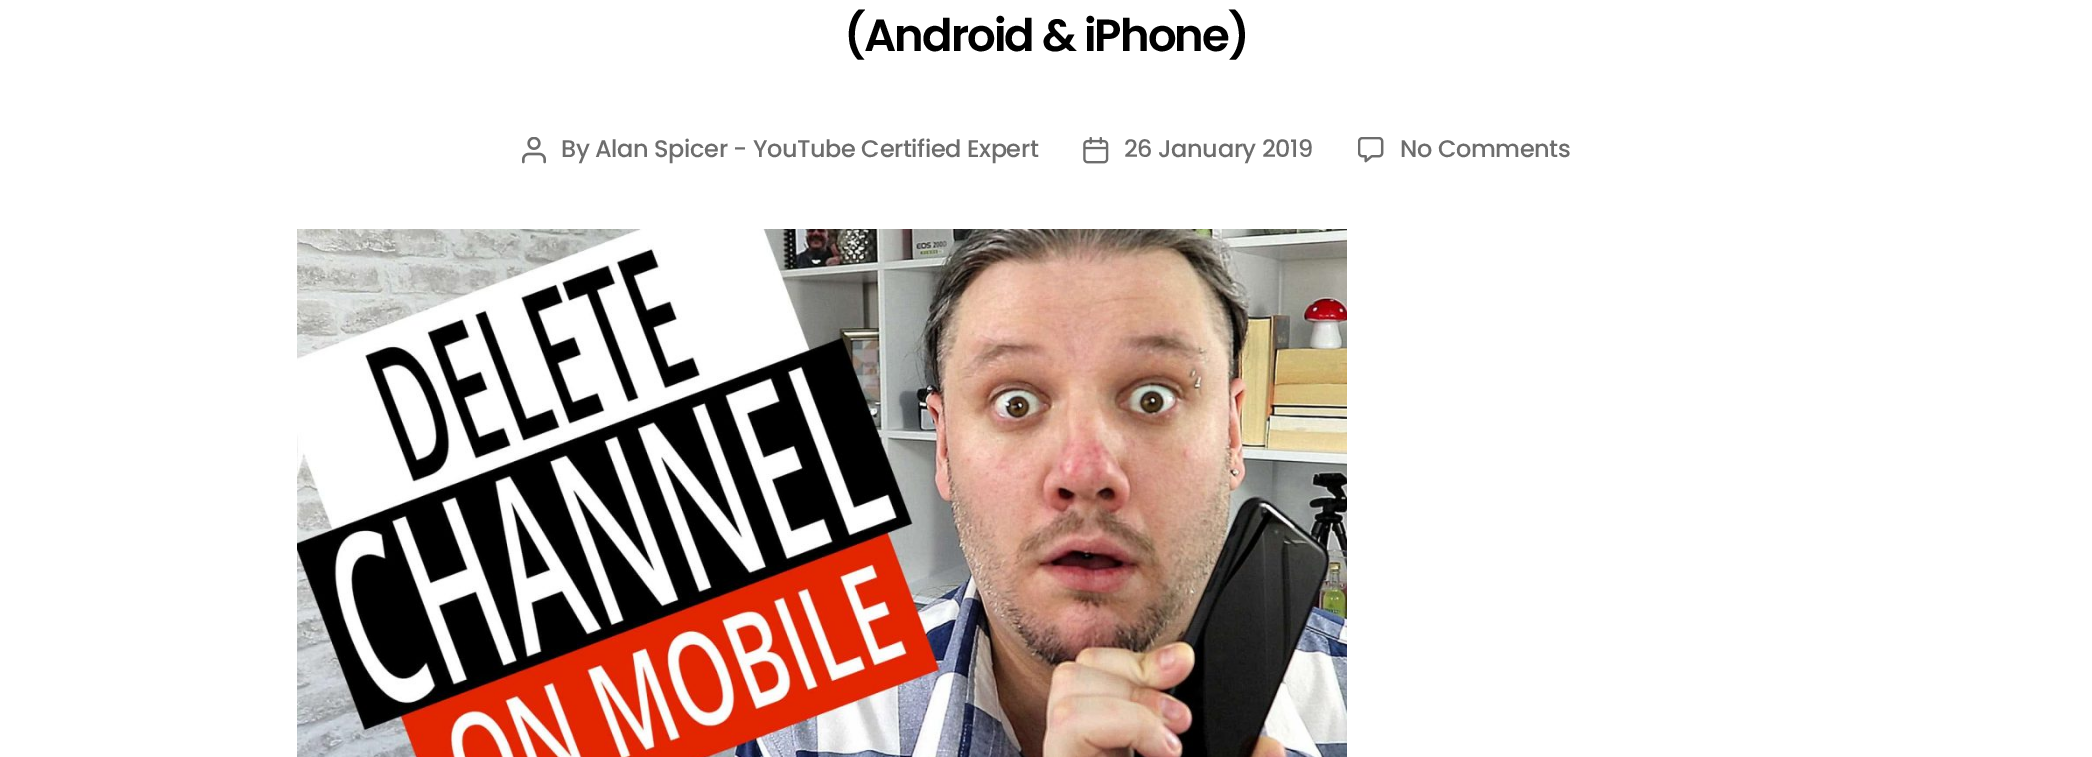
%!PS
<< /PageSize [2092 757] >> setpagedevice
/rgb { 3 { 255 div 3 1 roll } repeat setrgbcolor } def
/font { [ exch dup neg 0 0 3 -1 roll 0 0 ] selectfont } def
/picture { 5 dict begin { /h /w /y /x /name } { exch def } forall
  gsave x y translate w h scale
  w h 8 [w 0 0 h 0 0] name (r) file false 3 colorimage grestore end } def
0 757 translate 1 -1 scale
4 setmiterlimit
255 255 255 rgb
0 0 2092 757 rectfill
(img_01.rgb) 522 137 24 27 picture
(img_02.rgb) 1083 137 26 27 picture
(img_03.rgb) 1358 137 26 26 picture
(img_04.rgb) 297 229 1050 528 picture
/Poppins-SemiBold 45 font
0 0 0 rgb
844 51 moveto -1.9 0 (\(Android & iPhone\)) ashow
/Poppins-Medium 24 font
109 109 109 rgb
561 157 moveto -0.4 0 (By Alan Spicer - YouTube Certified Expert) ashow
1124 157 moveto -0.4 0 (26 January 2019) ashow
1400 157 moveto -0.4 0 (No Comments) ashow
showpage
